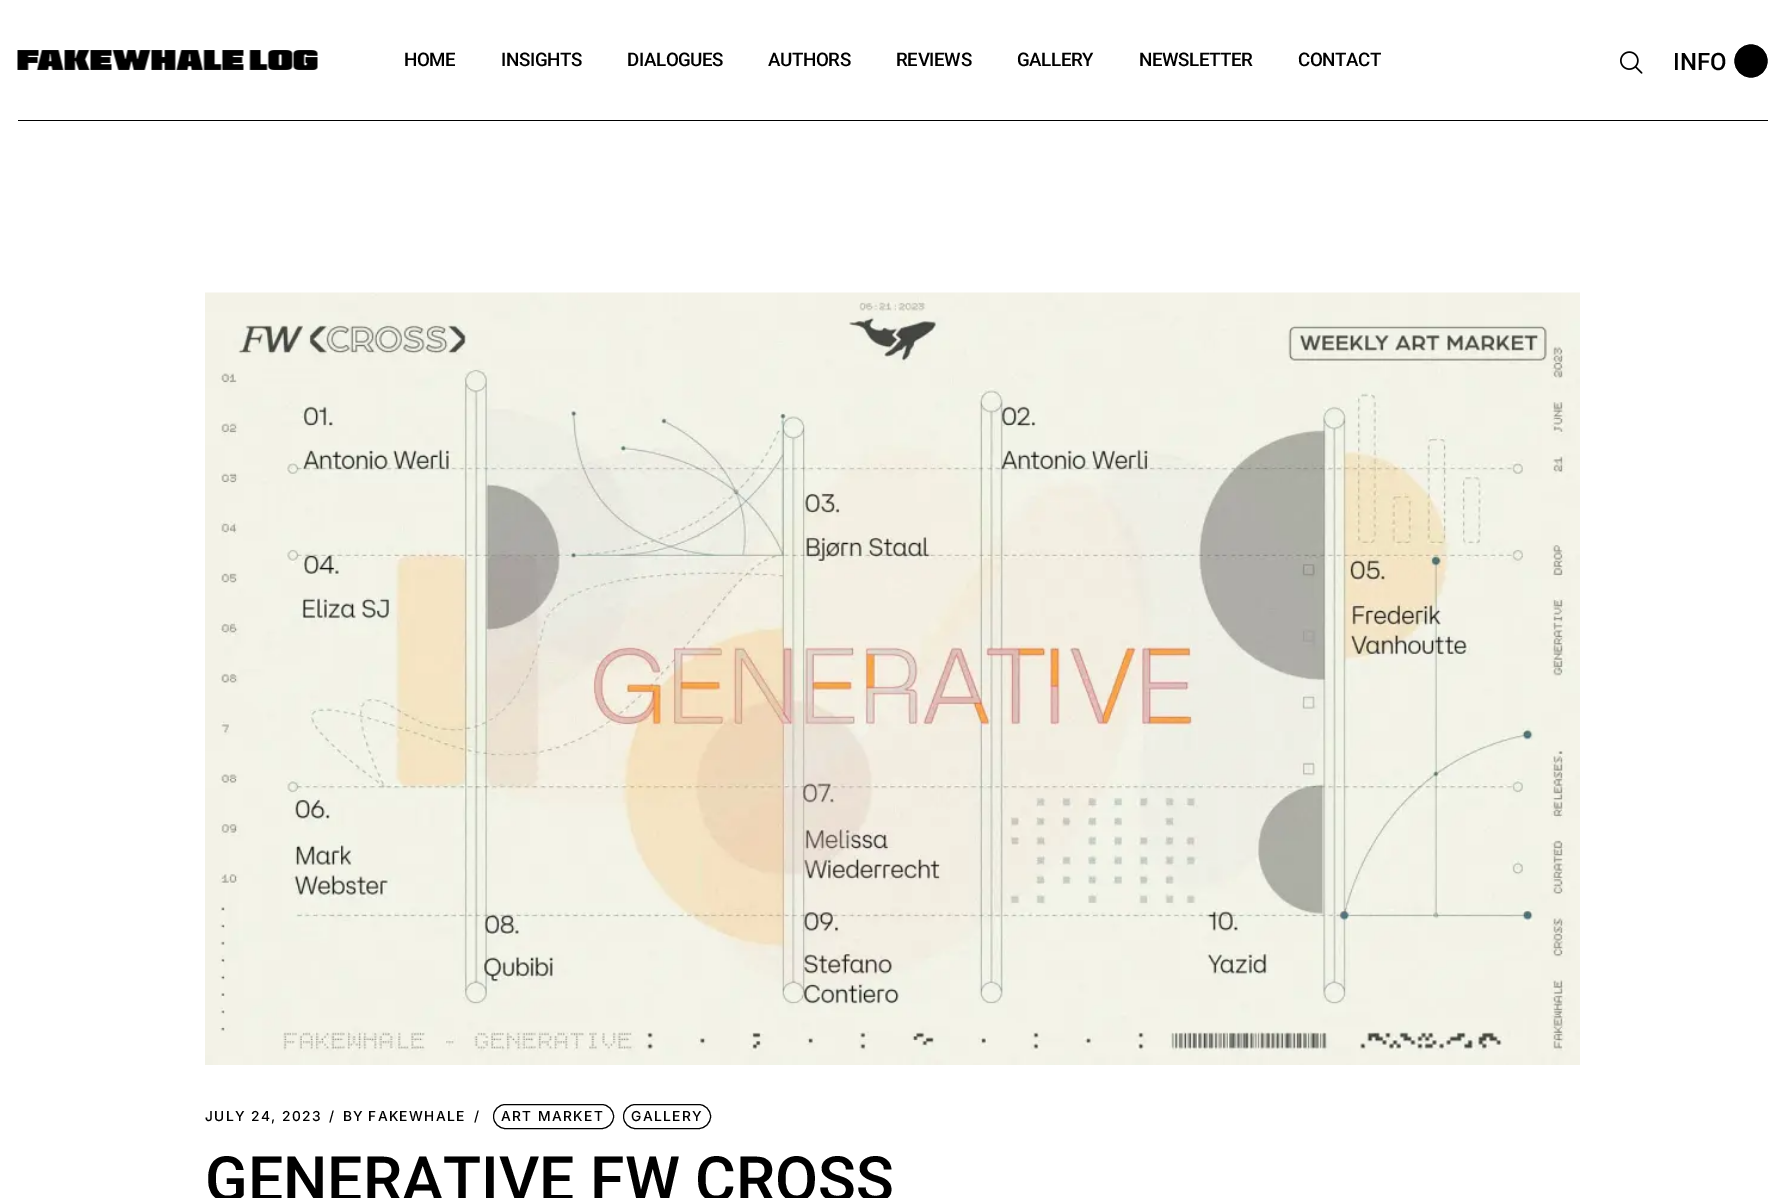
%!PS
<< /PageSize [1784 1198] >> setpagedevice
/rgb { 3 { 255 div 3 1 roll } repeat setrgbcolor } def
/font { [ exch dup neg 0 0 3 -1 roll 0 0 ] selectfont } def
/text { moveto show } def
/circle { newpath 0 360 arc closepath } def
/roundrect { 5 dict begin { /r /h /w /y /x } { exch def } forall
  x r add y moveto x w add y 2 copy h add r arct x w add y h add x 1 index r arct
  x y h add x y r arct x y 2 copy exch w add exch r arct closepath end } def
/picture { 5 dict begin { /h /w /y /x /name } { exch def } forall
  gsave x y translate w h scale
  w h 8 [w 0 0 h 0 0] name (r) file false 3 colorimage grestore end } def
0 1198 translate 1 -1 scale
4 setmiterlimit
255 255 255 rgb
0 0 1784 1198 rectfill
0 0 0 rgb
18 120 1750 1 rectfill
(img_01.rgb) 17 50 301 20 picture
(img_02.rgb) 1620 51 23 23 picture
1.2 setlinewidth
1751 61 16 circle stroke
1751 61 16 circle fill
(img_03.rgb) 205 292 1375 773 picture
1 setlinewidth
493.5 1104.5 120 24 12 roundrect stroke
623.5 1104.5 87 24 12 roundrect stroke
/Roboto-Medium 18.75 font
404 66 moveto -0.4 0 (HOME) ashow
501 66 moveto -0.4 0 (INSIGHTS) ashow
627 66 moveto -0.4 0 (DIALOGUES) ashow
768 66 moveto -0.4 0 (AUTHORS) ashow
896 66 moveto -0.4 0 (REVIEWS) ashow
1017 66 moveto -0.4 0 (GALLERY) ashow
1139 66 moveto -0.4 0 (NEWSLETTER) ashow
1298 66 moveto -0.4 0 (CONTACT) ashow
/Roboto-Medium 24 font
(INFO) 1673 70 text
/Inter-Medium 13.75 font
205 1121 moveto 1.4 0 (JULY 24, 2023) ashow
329 1121 moveto 1.4 0 (/) ashow
343 1121 moveto 1.4 0 (BY) ashow
368 1121 moveto 1.4 0 (FAKEWHALE) ashow
474 1121 moveto 1.4 0 (/) ashow
501 1121 moveto 1.4 0 (ART MARKET) ashow
631 1121 moveto 1.4 0 (GALLERY) ashow
/Roboto-Medium 62.5 font
(GENERATIVE FW CROSS) 205 1201 text
showpage
